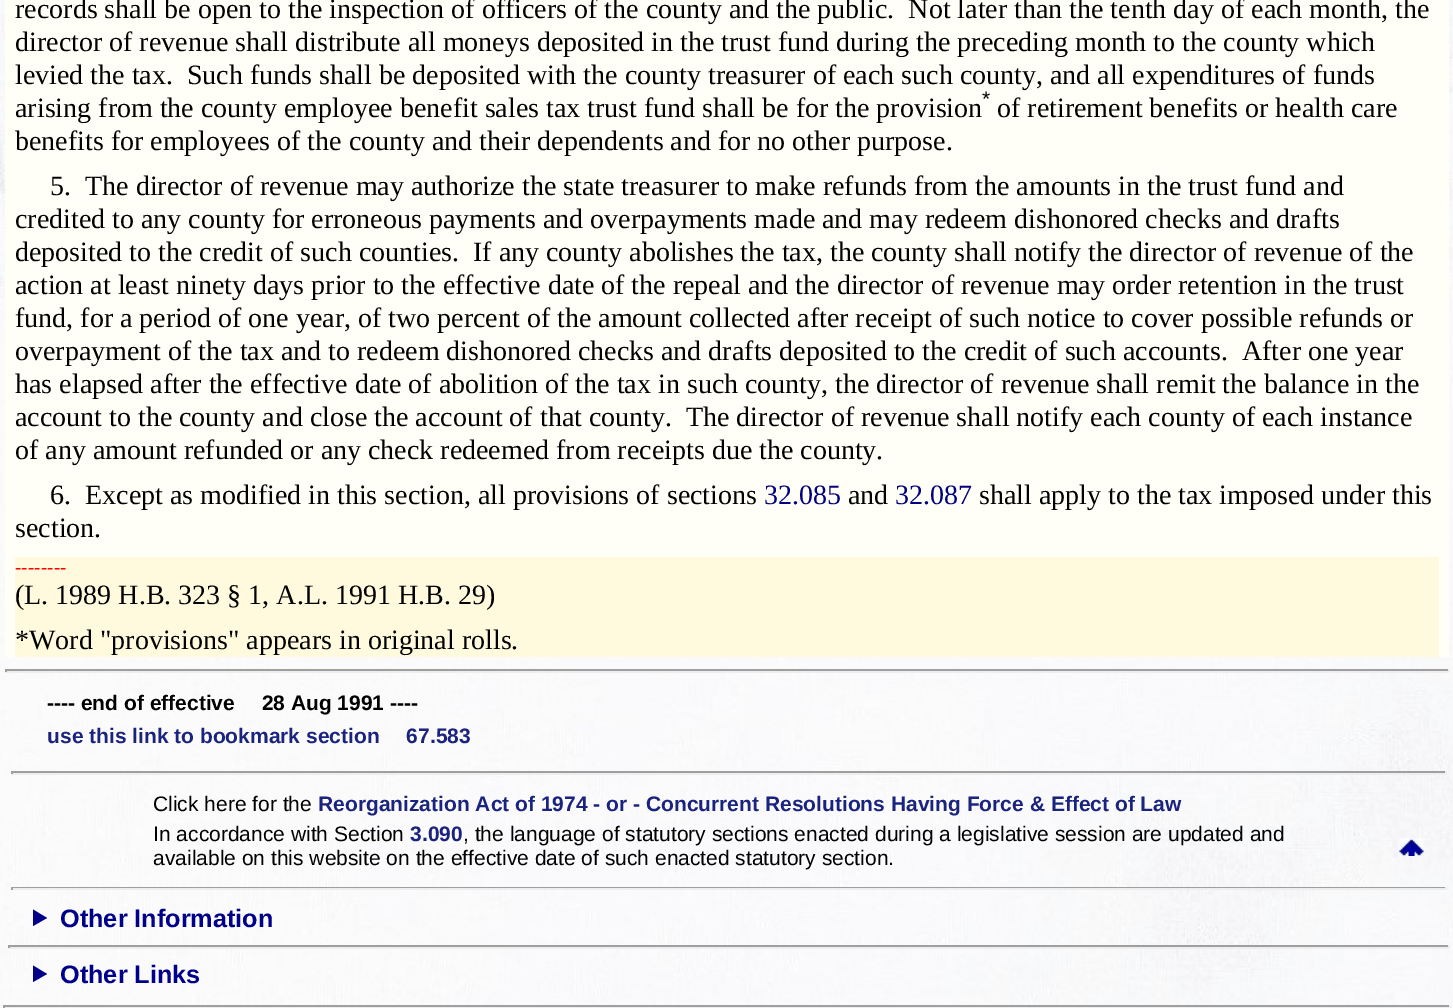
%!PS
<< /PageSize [1453 1008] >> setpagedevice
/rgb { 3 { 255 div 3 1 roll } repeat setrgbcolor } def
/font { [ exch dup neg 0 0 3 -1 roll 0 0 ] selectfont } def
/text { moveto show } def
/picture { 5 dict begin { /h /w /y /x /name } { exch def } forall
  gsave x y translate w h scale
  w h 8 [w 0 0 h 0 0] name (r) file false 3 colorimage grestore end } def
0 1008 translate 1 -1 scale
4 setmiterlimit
255 255 255 rgb
0 0 1453 1008 rectfill
(img_01.rgb) 0 0 1453 1008 picture
255 255 247 rgb
5 0 1444 657 rectfill
255 250 222 rgb
15 557 1424 100 rectfill
159 159 159 rgb
5 669 1444 2 rectfill
238 238 238 rgb
1448 669 2 3 rectfill
5 671 1444 2 rectfill
159 159 159 rgb
5 669 2 3 rectfill
11 771 1435 2 rectfill
238 238 238 rgb
1445 771 2 3 rectfill
11 773 1435 2 rectfill
159 159 159 rgb
11 771 2 3 rectfill
(img_02.rgb) 1399 838 25 18 picture
11 887 1435 1 rectfill
238 238 238 rgb
1445 887 2 3 rectfill
11 888 1435 2 rectfill
159 159 159 rgb
11 887 2 3 rectfill
0 0 139 rgb
33 909.5 moveto 14 8.5 rlineto -14 8 rlineto closepath fill
159 159 159 rgb
8 945 1441 2 rectfill
238 238 238 rgb
1448 945 2 3 rectfill
8 947 1441 2 rectfill
159 159 159 rgb
8 945 2 3 rectfill
0 0 139 rgb
33 965.5 moveto 14 8.5 rlineto -14 8 rlineto closepath fill
159 159 159 rgb
3 1005 1448 2 rectfill
238 238 238 rgb
1449 1005 2 3 rectfill
3 1007 1448 1 rectfill
159 159 159 rgb
3 1005 2 3 rectfill
/LiberationSerif-Regular 28 font
0 0 0 rgb
(records shall be open to the inspection of officers of the county and the public.  Not later than the tenth day of each month, the) 15 18 text
(director of revenue shall distribute all moneys deposited in the trust fund during the preceding month to the county which) 15 51 text
(levied the tax.  Such funds shall be deposited with the county treasurer of each such county, and all expenditures of funds) 15 84 text
/LiberationSans-Regular 21 font
(*) 982 106 text
/LiberationSerif-Regular 28 font
(arising from the county employee benefit sales tax trust fund shall be for the provision) 15 117 text
(of retirement benefits or health care) 997 117 text
(benefits for employees of the county and their dependents and for no other purpose.) 15 150 text
(5.  The director of revenue may authorize the state treasurer to make refunds from the amounts in the trust fund and) 50 195 text
(credited to any county for erroneous payments and overpayments made and may redeem dishonored checks and drafts) 15 228 text
(deposited to the credit of such counties.  If any county abolishes the tax, the county shall notify the director of revenue of the) 15 261 text
(action at least ninety days prior to the effective date of the repeal and the director of revenue may order retention in the trust) 15 294 text
(fund, for a period of one year, of two percent of the amount collected after receipt of such notice to cover possible refunds or) 15 327 text
(overpayment of the tax and to redeem dishonored checks and drafts deposited to the credit of such accounts.  After one year) 15 360 text
(has elapsed after the effective date of abolition of the tax in such county, the director of revenue shall remit the balance in the) 15 393 text
(account to the county and close the account of that county.  The director of revenue shall notify each county of each instance) 15 426 text
(of any amount refunded or any check redeemed from receipts due the county.) 15 459 text
(6.  Except as modified in this section, all provisions of sections) 50 504 text
0 0 128 rgb
(32.085) 764 504 text
0 0 0 rgb
(and) 848 504 text
0 0 128 rgb
(32.087) 895 504 text
0 0 0 rgb
(shall apply to the tax imposed under this) 979 504 text
(section.) 15 537 text
/LiberationSans-Regular 19.5 font
255 0 0 rgb
(--------) 15 574 text
/LiberationSerif-Regular 28 font
0 0 0 rgb
(\(L. 1989 H.B. 323 § 1, A.L. 1991 H.B. 29\)) 15 604 text
(*Word "provisions" appears in original rolls.) 15 649 text
/LiberationSans-Bold 21 font
(---- end of effective  28 Aug 1991 ----) 47 710 text
26 35 126 rgb
(use this link to bookmark section  67.583) 47 743 text
/LiberationSans-Regular 21 font
0 0 0 rgb
(Click here for the) 153 811 text
/LiberationSans-Bold 21 font
26 35 126 rgb
(Reorganization Act of 1974 - or - Concurrent Resolutions Having Force & Effect of Law) 318 811 text
/LiberationSans-Regular 21 font
0 0 0 rgb
(In accordance with Section) 153 841 text
/LiberationSans-Bold 21 font
26 35 126 rgb
(3.090) 410 841 text
/LiberationSans-Regular 21 font
0 0 0 rgb
(, the language of statutory sections enacted during a legislative session are updated and) 463 841 text
(available on this website on the effective date of such enacted statutory section.) 153 865 text
/LiberationSans-Bold 25.25 font
0 0 139 rgb
(Other Information) 60 927 text
(Other Links) 60 983 text
showpage
